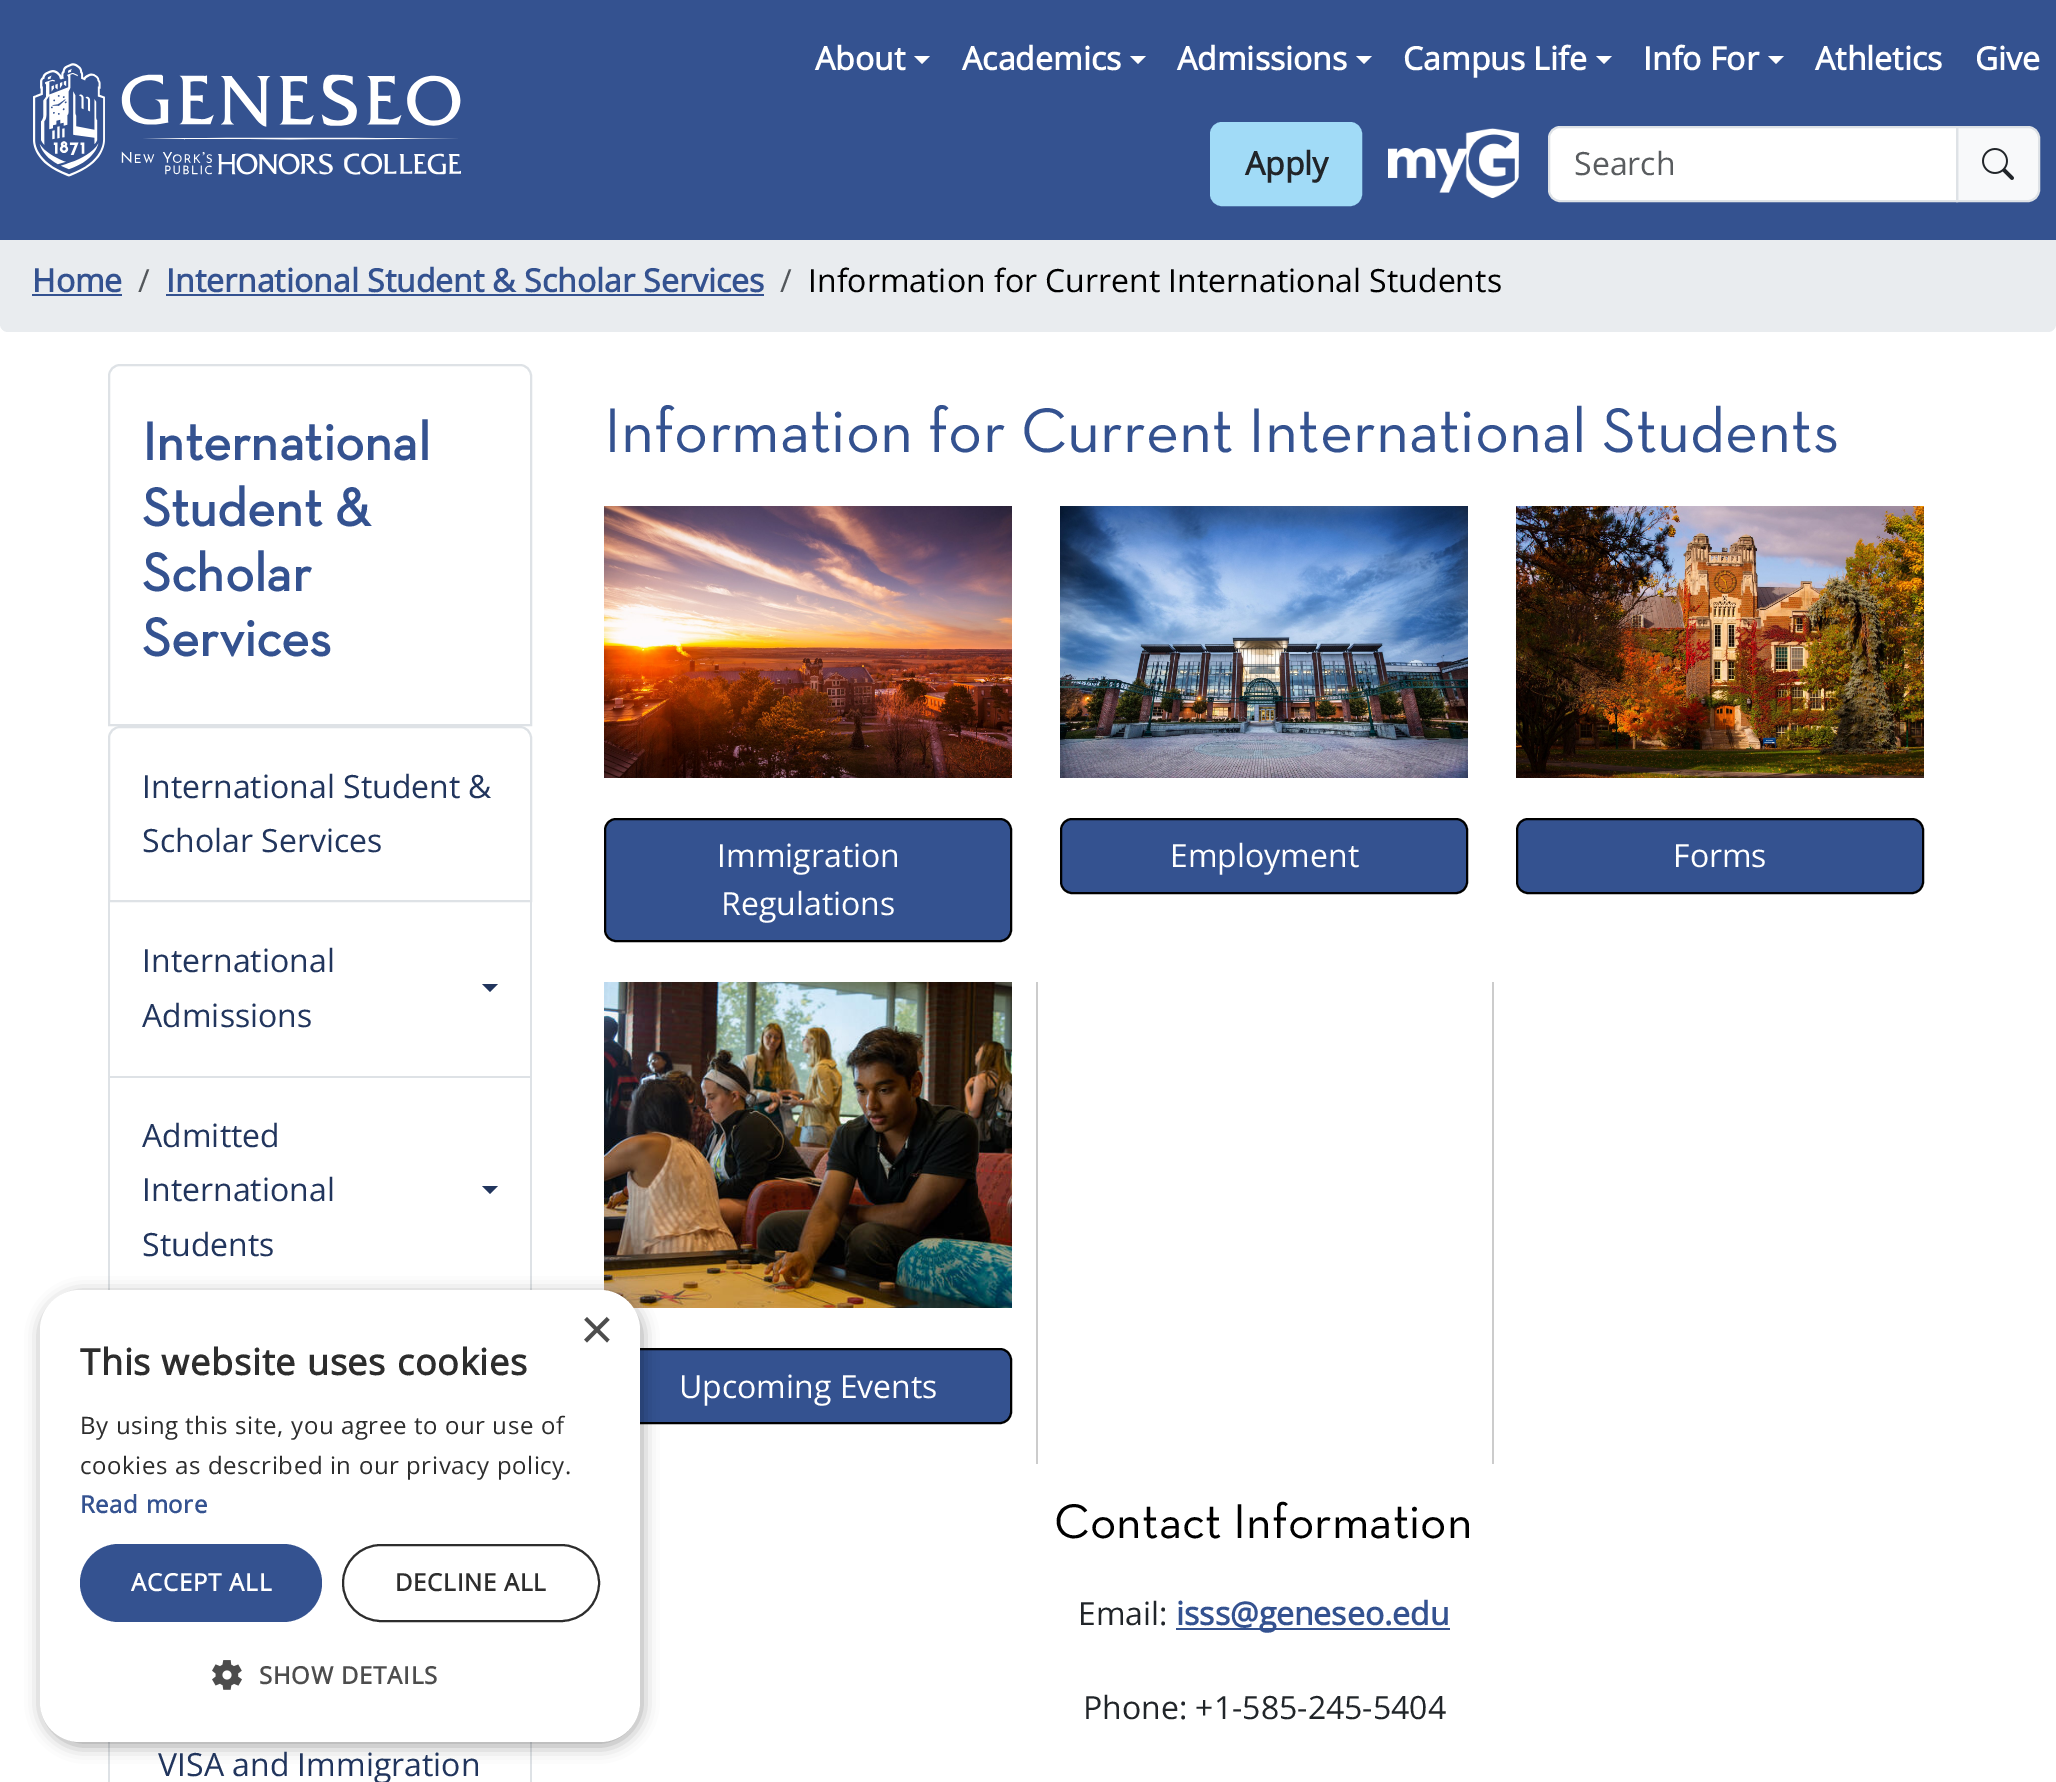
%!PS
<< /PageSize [2056 1782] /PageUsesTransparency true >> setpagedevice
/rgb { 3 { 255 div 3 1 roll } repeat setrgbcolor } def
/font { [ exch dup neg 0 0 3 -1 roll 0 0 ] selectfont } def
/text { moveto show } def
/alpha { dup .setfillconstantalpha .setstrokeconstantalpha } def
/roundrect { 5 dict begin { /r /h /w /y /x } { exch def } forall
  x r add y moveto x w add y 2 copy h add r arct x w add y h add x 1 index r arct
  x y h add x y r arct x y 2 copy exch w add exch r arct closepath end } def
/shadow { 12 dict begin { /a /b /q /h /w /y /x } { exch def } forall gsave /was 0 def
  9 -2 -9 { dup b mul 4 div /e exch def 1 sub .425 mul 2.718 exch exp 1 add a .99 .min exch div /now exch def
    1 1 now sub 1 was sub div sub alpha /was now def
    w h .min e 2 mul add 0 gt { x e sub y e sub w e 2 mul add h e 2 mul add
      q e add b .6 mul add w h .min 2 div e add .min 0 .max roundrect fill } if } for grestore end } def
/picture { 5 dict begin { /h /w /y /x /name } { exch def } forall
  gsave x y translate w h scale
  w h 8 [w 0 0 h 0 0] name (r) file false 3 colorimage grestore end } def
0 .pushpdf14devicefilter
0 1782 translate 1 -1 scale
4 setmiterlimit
255 255 255 rgb
0 0 2056 1782 rectfill
233 236 239 rgb
0 230 2056 102 8 roundrect fill
52 82 144 rgb
0 0 2056 240 rectfill
(img_01.rgb) 33 63 428 114 picture
255 255 255 rgb
914 56 moveto 16 0 rlineto -8 8 rlineto closepath fill
1130 56 moveto 16 0 rlineto -8 8 rlineto closepath fill
1356 56 moveto 16 0 rlineto -8 8 rlineto closepath fill
1596 56 moveto 16 0 rlineto -8 8 rlineto closepath fill
1768 56 moveto 16 0 rlineto -8 8 rlineto closepath fill
161 219 247 rgb
1212 124 148 80 10 roundrect gsave fill grestore
4 setlinewidth
stroke
(img_02.rgb) 1388 128 131 71 picture
248 249 250 rgb
1957 127 moveto 71 0 rlineto 6 0 11 5 11 11 rcurveto 0 52 rlineto 0 6 -5 11 -11 11 rcurveto -71 0 rlineto closepath gsave fill grestore
222 226 230 rgb
2 setlinewidth
stroke
255 255 255 rgb
1560 127 moveto 397 0 rlineto 0 74 rlineto -397 0 rlineto -6 0 -11 -5 -11 -11 rcurveto 0 -52 rlineto 0 -6 5 -11 11 -11 rcurveto closepath gsave fill grestore
222 226 230 rgb
stroke
(img_03.rgb) 1982 148 32 32 picture
52 82 144 rgb
32 294 90 2 rectfill
166 294 598 2 rectfill
222 226 230 rgb
120 365 moveto 400 0 rlineto 6 0 11 5 11 11 rcurveto 0 349 rlineto -422 0 rlineto 0 -349 rlineto 0 -6 5 -11 11 -11 rcurveto closepath stroke
120 727 moveto 400 0 rlineto 6 0 11 5 11 11 rcurveto 0 163 rlineto -422 0 rlineto 0 -163 rlineto 0 -6 5 -11 11 -11 rcurveto closepath stroke
530 902 2 388 rectfill
108 1076 424 2 rectfill
108 902 2 388 rectfill
33 53 93 rgb
482 984 moveto 16 0 rlineto -8 8 rlineto closepath fill
482 1186 moveto 16 0 rlineto -8 8 rlineto closepath fill
222 226 230 rgb
530 1742 2 40 rectfill
108 1742 2 40 rectfill
(img_04.rgb) 604 506 408 272 picture
52 82 144 rgb
605 819 406 122 11 roundrect gsave fill grestore
0 0 0 rgb
stroke
(img_05.rgb) 1060 506 408 272 picture
52 82 144 rgb
1061 819 406 74 11 roundrect gsave fill grestore
0 0 0 rgb
stroke
(img_06.rgb) 1516 506 408 272 picture
52 82 144 rgb
1517 819 406 74 11 roundrect gsave fill grestore
0 0 0 rgb
stroke
(img_07.rgb) 604 982 408 326 picture
52 82 144 rgb
605 1349 406 74 11 roundrect gsave fill grestore
0 0 0 rgb
stroke
204 204 204 rgb
1036 982 2 482 rectfill
1492 982 2 482 rectfill
52 82 144 rgb
1176 1628 274 2 rectfill
0 0 0 rgb
42 1294 600 452 40 8 0.35 shadow
255 255 255 rgb
40 1290 600 452 40 roundrect fill
52 82 144 rgb
80 1544 242 78 39 roundrect fill
45 45 45 rgb
343 1545 256 76 38 roundrect stroke
(img_08.rgb) 212 1660 30 30 picture
/OpenSans-Bold 32 font
255 255 255 rgb
(About) 815 70 text
(Academics) 962 70 text
(Admissions) 1177 70 text
(Campus Life) 1403 70 text
(Info For) 1643 70 text
(Athletics) 1815 70 text
(Give) 1975 70 text
33 37 41 rgb
(Apply) 1245 175 text
/OpenSans-Regular 32 font
89 92 95 rgb
(Search) 1574 175 text
/OpenSans-Bold 32 font
52 82 144 rgb
(Home) 32 292 text
/OpenSans-Regular 32 font
83 87 91 rgb
(/) 138 292 text
/OpenSans-Bold 32 font
52 82 144 rgb
(International Student & Scholar Services) 166 292 text
/OpenSans-Regular 32 font
83 87 91 rgb
(/) 780 292 text
0 0 0 rgb
(Information for Current International Students) 808 292 text
/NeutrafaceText-Bold 54.5 font
52 82 144 rgb
(International) 142 460 text
(Student &) 142 526 text
(Scholar) 142 591 text
(Services) 142 656 text
/OpenSans-Regular 32 font
33 53 93 rgb
(International Student &) 142 798 text
(Scholar Services) 142 852 text
(International) 142 972 text
(Admissions) 142 1027 text
(Admitted) 142 1147 text
(International) 142 1201 text
(Students) 142 1256 text
(VISA and Immigration) 158 1776 text
/NeutrafaceText-Regular 64 font
52 82 144 rgb
(Information for Current International Students) 604 452 text
/OpenSans-Regular 32 font
255 255 255 rgb
(Immigration) 717 867 text
(Regulations) 721 915 text
(Employment) 1170 867 text
(Forms) 1673 867 text
(Upcoming Events) 679 1398 text
/NeutrafaceText-Regular 49.5 font
0 0 0 rgb
(Contact Information) 1054 1538 text
/OpenSans-Regular 32 font
33 37 41 rgb
(Email:) 1078 1625 text
/OpenSans-Bold 32 font
52 82 144 rgb
(isss@geneseo.edu) 1176 1625 text
/OpenSans-Regular 32 font
33 37 41 rgb
(Phone: +1-585-245-5404) 1083 1719 text
/LiberationSans-Regular 58 font
77 77 77 rgb
(×) 580 1349 text
/OpenSans-Bold 36 font
45 45 45 rgb
80 1375 moveto 0.8 0 (This website uses cookies) ashow
/OpenSans-Regular 24 font
80 1434 moveto 0.6 0 (By using this site, you agree to our use of) ashow
80 1474 moveto 0.6 0 (cookies as described in our privacy policy.) ashow
/OpenSans-Bold 24 font
52 82 144 rgb
80 1513 moveto 0.6 0 (Read more) ashow
255 255 255 rgb
131 1591 moveto 0.8 0 (ACCEPT ALL) ashow
45 45 45 rgb
395 1591 moveto 0.8 0 (DECLINE ALL) ashow
77 77 77 rgb
259 1684 moveto 0.8 0 (SHOW DETAILS) ashow
.poppdf14devicefilter showpage
